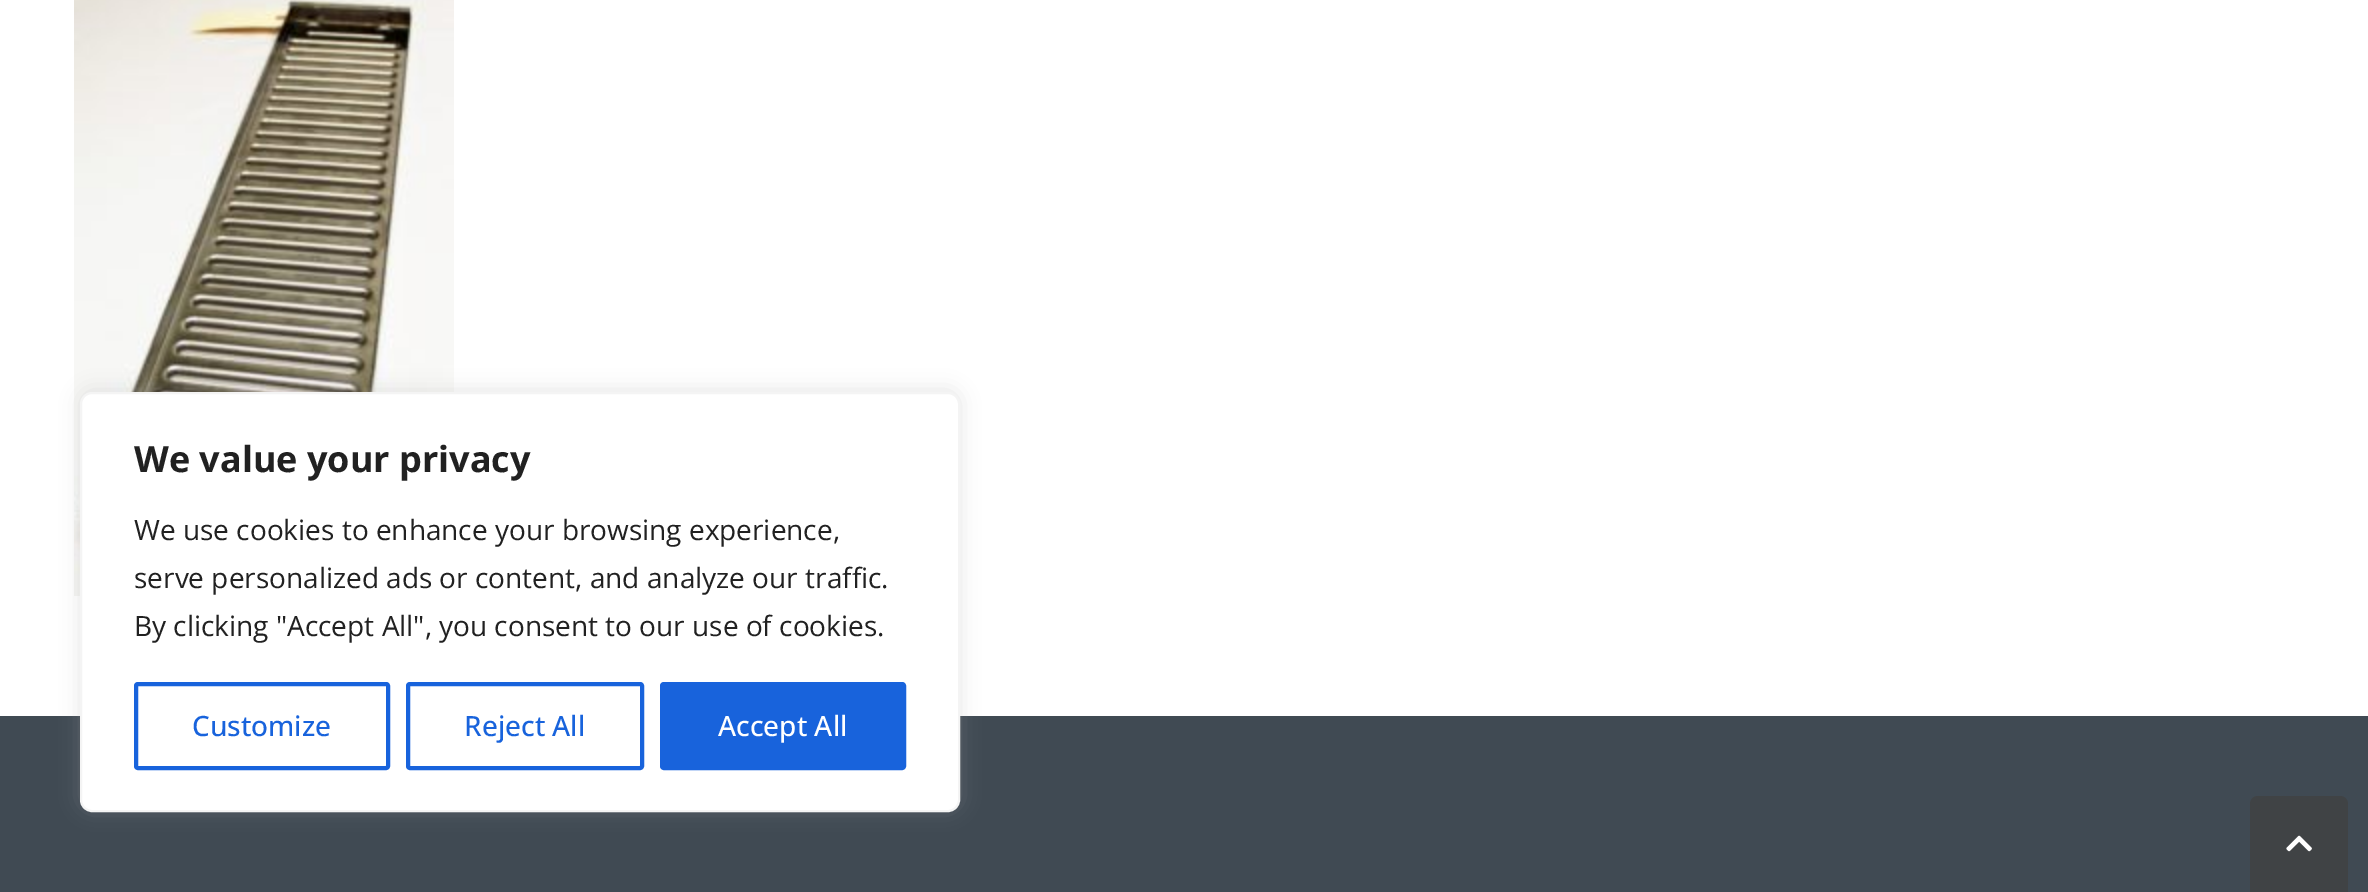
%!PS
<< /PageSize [2368 892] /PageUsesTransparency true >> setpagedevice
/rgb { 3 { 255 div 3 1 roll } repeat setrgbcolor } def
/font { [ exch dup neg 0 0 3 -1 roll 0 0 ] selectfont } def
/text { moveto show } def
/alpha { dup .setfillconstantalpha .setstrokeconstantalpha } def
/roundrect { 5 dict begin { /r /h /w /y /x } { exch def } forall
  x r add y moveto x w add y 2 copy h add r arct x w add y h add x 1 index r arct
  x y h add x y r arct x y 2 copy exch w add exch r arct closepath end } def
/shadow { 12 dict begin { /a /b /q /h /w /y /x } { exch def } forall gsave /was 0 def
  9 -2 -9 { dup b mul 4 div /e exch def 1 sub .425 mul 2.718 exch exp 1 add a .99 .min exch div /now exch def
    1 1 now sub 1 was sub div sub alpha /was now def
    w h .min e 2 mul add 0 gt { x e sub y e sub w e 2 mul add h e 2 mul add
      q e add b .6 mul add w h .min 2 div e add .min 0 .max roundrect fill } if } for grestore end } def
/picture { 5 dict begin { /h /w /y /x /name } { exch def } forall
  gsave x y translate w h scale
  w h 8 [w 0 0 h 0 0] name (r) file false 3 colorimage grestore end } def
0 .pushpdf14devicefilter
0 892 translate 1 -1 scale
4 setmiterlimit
255 255 255 rgb
0 0 2368 892 rectfill
(img_01.rgb) 74 0 380 596 picture
64 74 83 rgb
0 716 2368 176 rectfill
172 171 171 rgb
80 390 880 420 12 10 0.3 shadow
255 255 255 rgb
81 393 878 418 11 roundrect gsave fill grestore
244 244 244 rgb
2 setlinewidth
stroke
24 99 220 rgb
4 setlinewidth
136 684 252 84 2 roundrect stroke
408 684 234 84 2 roundrect stroke
662 684 242 84 2 roundrect gsave fill grestore
stroke
64 67 69 rgb
2258 796 moveto 82 0 rlineto 4.5 0 8 3.5 8 8 rcurveto 0 88 rlineto -98 0 rlineto 0 -88 rlineto 0 -4.5 3.5 -8 8 -8 rcurveto closepath fill
(img_02.rgb) 2286 835 26 17 picture
/OpenSans-Bold 36 font
33 33 33 rgb
(We value your privacy) 134 472 text
/OpenSans-Regular 28 font
(We use cookies to enhance your browsing experience,) 134 540 text
(serve personalized ads or content, and analyze our traffic.) 134 588 text
(By clicking "Accept All", you consent to our use of cookies.) 134 636 text
/OpenSans-Medium 28 font
24 99 220 rgb
(Customize) 192 736 text
(Reject All) 464 736 text
255 255 255 rgb
(Accept All) 718 736 text
.poppdf14devicefilter showpage
